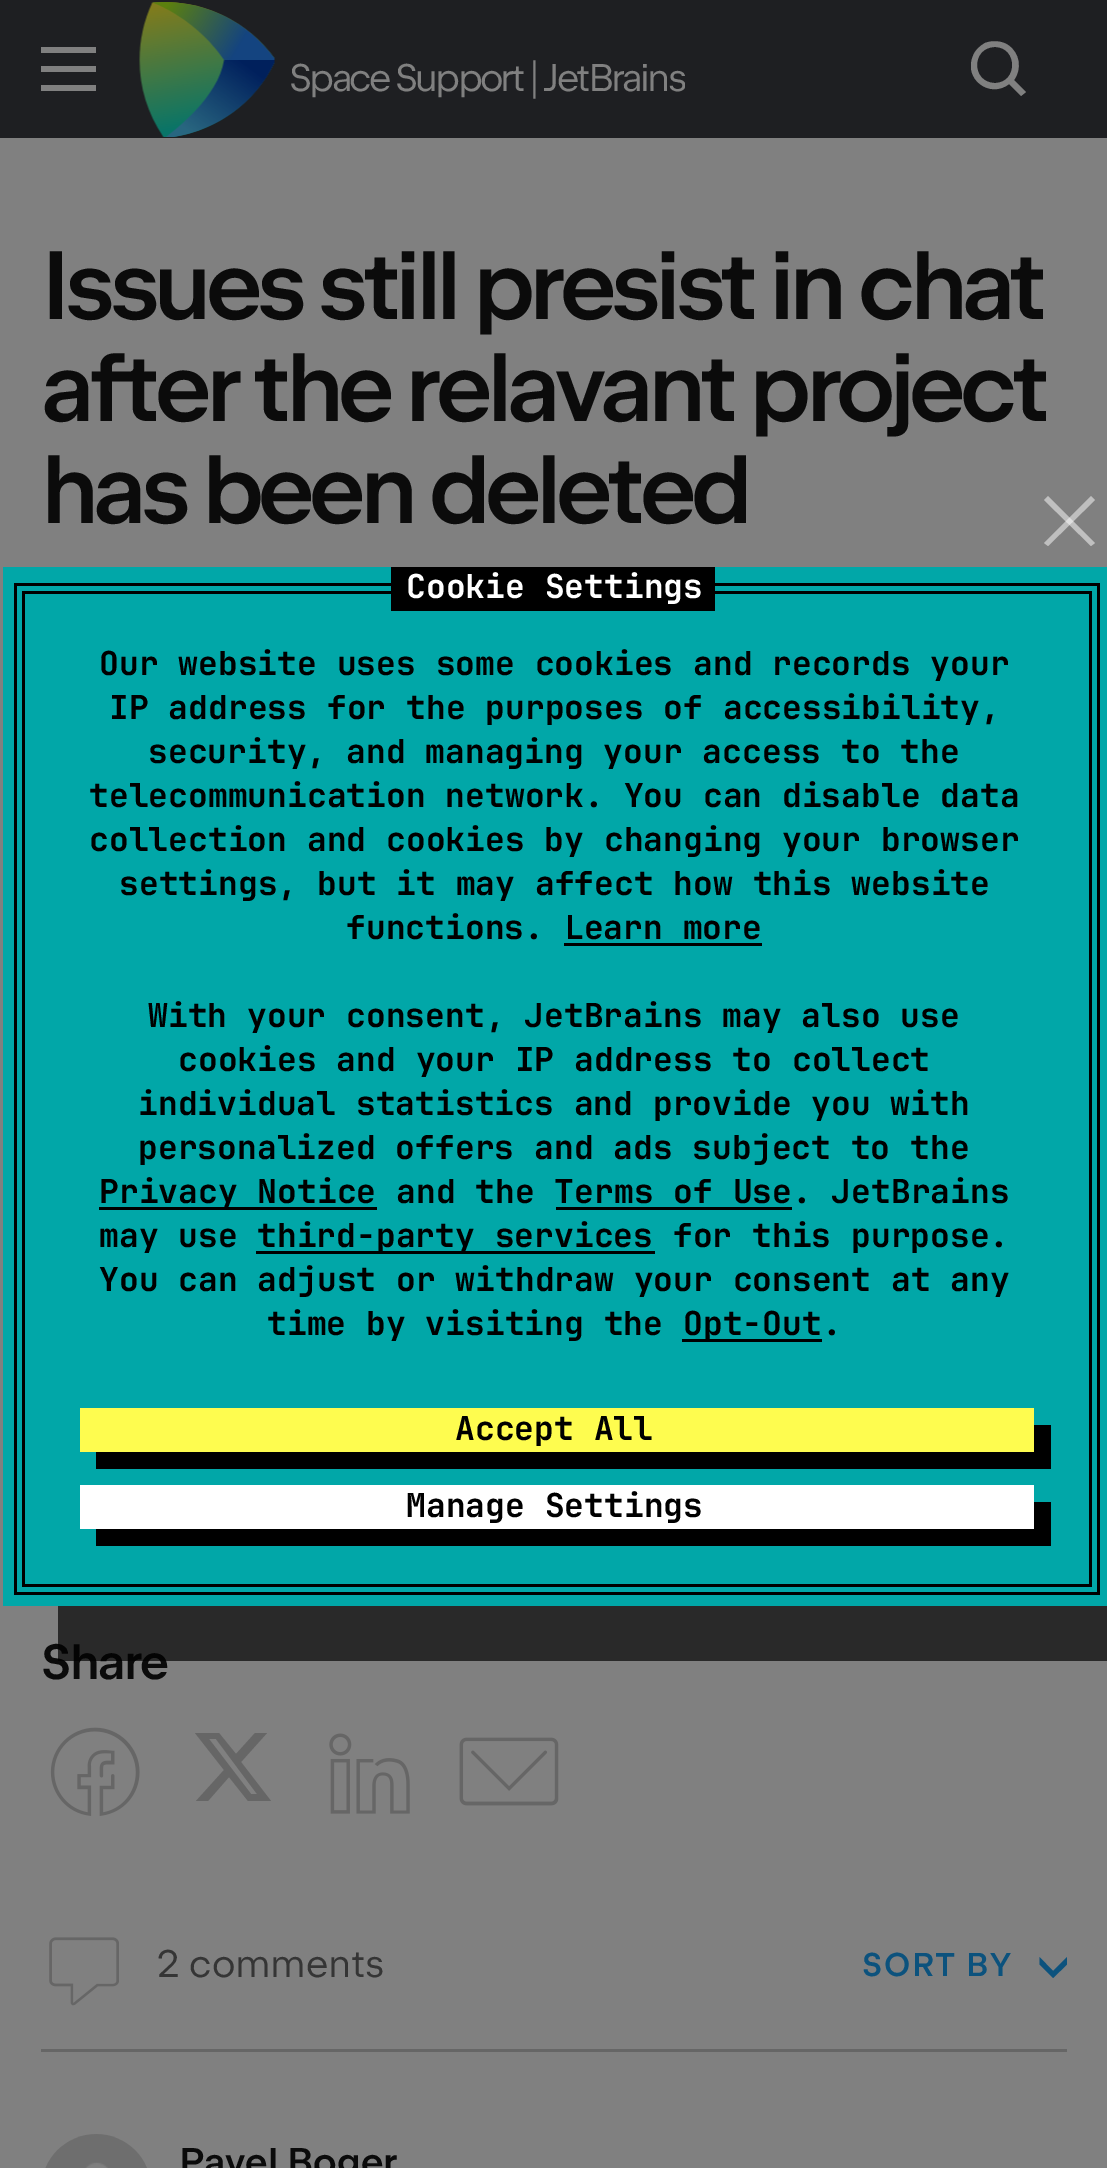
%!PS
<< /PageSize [1107 2168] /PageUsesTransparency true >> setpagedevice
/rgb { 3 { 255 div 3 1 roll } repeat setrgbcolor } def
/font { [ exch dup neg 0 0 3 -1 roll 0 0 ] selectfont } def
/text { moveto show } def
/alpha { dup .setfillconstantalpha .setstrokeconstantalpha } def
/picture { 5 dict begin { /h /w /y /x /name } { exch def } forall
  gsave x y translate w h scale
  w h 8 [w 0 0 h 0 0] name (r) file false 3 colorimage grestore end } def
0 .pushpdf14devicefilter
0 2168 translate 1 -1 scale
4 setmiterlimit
128 128 128 rgb
0 0 1107 2168 rectfill
30 31 34 rgb
0 0 1107 138 rectfill
128 128 128 rgb
41 66 55 6 rectfill
41 47 55 6 rectfill
41 85 55 6 rectfill
(img_01.rgb) 139 2 136 135 picture
gsave
971 41 55 55 rectclip
1026 92 moveto -12 -12 rlineto 8 -11 6 -27 -6 -35 rcurveto -6 -4 -15 -5 -23 -2 rcurveto -5 3 -10 7 -12 13 rcurveto -10 23 17 43 36 28 rcurveto 12 12 rlineto closepath 995 83 moveto -24 0 -24 -36 0 -36 rcurveto 23 0 23 36 0 36 rcurveto closepath fill
grestore
(img_02.rgb) 50 1727 90 89 picture
102 102 102 rgb
255 1733 moveto 12 0 rlineto -26 29 rlineto 30 39 rlineto -23 0 rlineto -19 -24 rlineto -21 24 rlineto -12 0 rlineto 28 -31 rlineto -29 -37 rlineto 24 0 rlineto 17 21 rlineto closepath 251 1794 moveto 6 0 rlineto -41 -55 rlineto -7 0 rlineto closepath fill
(img_03.rgb) 329 1733 81 81 picture
(img_04.rgb) 459 1737 100 69 picture
41 2049 1026 3 rectfill
(img_05.rgb) 49 1937 70 69 picture
12 82 125 rgb
1039.5 1957 moveto 0 7.5 rlineto 13.5 13.5 rlineto 14 -13.5 rlineto 0 -7.5 rlineto -14 14 rlineto closepath fill
(img_06.rgb) 45 2134 102 34 picture
1 167 168 rgb
3 567 1104 1039 rectfill
191 191 191 rgb
1044 543 moveto 47 -47 rlineto 4 4 rlineto -47 46 rlineto closepath fill
0.5 alpha
255 255 255 rgb
1048 496 moveto 47 47 rlineto -4 3 rlineto -47 -46 rlineto closepath fill
1 alpha
0 0 0 rgb
22 591 1070 3 rectfill
1089 591 3 996 rectfill
22 591 3 817 rectfill
14 583 1086 3 rectfill
391 567 324 44 rectfill
1097 583 3 1012 rectfill
14 583 3 822 rectfill
564 943 198 3 rectfill
99 1207 278 3 rectfill
556 1207 236 3 rectfill
256 1251 399 3 rectfill
682 1339 140 3 rectfill
22 1584 1070 3 rectfill
22 1408 3 179 rectfill
14 1592 1086 3 rectfill
14 1405 3 190 rectfill
96 1452 moveto 0 17 rlineto 955 0 rlineto 0 -44 rlineto -18 0 rlineto 0 27 rlineto closepath fill
254 252 79 rgb
80 1408 954 44 rectfill
0 0 0 rgb
96 1529 moveto 0 17 rlineto 955 0 rlineto 0 -44 rlineto -18 0 rlineto 0 27 rlineto closepath fill
255 255 255 rgb
80 1485 954 44 rectfill
gsave
289 55 396 44 rectclip
/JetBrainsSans-Regular 38.5 font
128 128 128 rgb
289 91 moveto -0.5 0 32 -2.75 0 (Space Support | JetBrains) awidthshow
grestore
/JetBrainsSans-SemiBold 96.75 font
11 11 11 rgb
41 319 moveto -5.5 0 (Issues still presist in chat) ashow
41 421 moveto -5.5 0 (after the relavant project) ashow
41 523 moveto -5.5 0 (has been deleted) ashow
/JetBrainsSans-SemiBold 49.5 font
41 1679 moveto -1.5 0 (Share) ashow
/JetBrainsSans-Regular 38.5 font
53 53 53 rgb
(2 comments) 157 1977 text
/JetBrainsSans-SemiBold 33 font
12 82 125 rgb
862 1976 moveto 1.5 0 (SORT BY) ashow
/JetBrainsSans-SemiBold 38.5 font
11 11 11 rgb
(Pavel Boger) 179 2175 text
0.68 alpha
0 0 0 rgb
58 1606 moveto 0 55 rlineto 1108 0 rlineto 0 -1039 rlineto -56 0 rlineto 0 984 rlineto closepath fill
/JetBrainsMono-Bold 33 font
1 alpha
255 255 255 rgb
(Cookie Settings) 406 598 text
0 0 0 rgb
(Our website uses some cookies and records your) 99 675 text
(IP address for the purposes of accessibility,) 109 719 text
(security, and managing your access to the) 148 763 text
(telecommunication network. You can disable data) 89 807 text
(collection and cookies by changing your browser) 89 851 text
(settings, but it may affect how this website) 119 895 text
(functions. Learn more) 346 939 text
(With your consent, JetBrains may also use) 148 1027 text
(cookies and your IP address to collect) 178 1071 text
(individual statistics and provide you with) 138 1115 text
(personalized offers and ads subject to the) 138 1159 text
(Privacy Notice and the Terms of Use. JetBrains) 99 1203 text
(may use) 99 1247 text
(third-party services for this purpose.) 257 1247 text
(You can adjust or withdraw your consent at any) 99 1291 text
(time by visiting the) 267 1335 text
(Opt-Out.) 683 1335 text
(Accept All) 455 1440 text
(Manage Settings) 406 1517 text
.poppdf14devicefilter showpage
